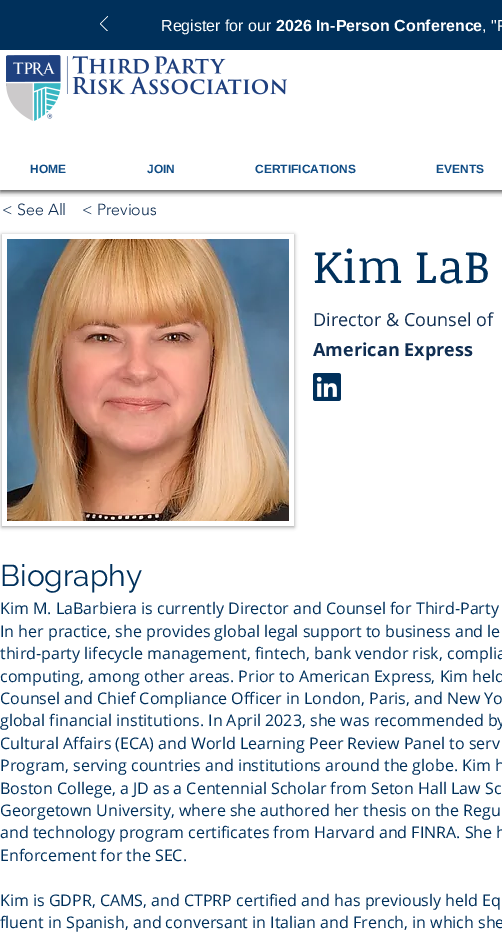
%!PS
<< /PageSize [502 942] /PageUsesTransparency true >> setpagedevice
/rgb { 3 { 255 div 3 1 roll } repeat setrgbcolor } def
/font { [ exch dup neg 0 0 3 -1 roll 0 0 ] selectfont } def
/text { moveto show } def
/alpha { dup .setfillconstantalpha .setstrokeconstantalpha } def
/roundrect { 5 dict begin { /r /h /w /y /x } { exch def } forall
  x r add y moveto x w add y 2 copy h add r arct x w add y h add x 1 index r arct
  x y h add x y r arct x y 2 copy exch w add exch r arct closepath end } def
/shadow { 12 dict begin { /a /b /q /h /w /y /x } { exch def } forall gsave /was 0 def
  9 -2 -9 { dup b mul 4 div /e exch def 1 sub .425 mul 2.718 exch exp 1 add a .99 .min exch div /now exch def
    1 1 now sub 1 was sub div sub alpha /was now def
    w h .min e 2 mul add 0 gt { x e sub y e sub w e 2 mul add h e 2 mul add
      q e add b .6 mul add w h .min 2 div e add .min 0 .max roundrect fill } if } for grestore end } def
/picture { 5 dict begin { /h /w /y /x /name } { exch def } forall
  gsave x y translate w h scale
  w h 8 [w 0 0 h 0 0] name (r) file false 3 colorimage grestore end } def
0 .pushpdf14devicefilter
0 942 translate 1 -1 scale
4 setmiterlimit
255 255 255 rgb
0 0 502 942 rectfill
gsave
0 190 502 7 rectclip
0 0 0 rgb
0 2 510 190 0 2.5 0.7 shadow
grestore
0 48 91 rgb
0 0 502 50 rectfill
(img_01.rgb) 100 16 8 15 picture
(img_02.rgb) 6 55 281 66 picture
gsave
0 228 moveto 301 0 rlineto 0 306 rlineto -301 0 rlineto closepath 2 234 moveto 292 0 rlineto 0 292 rlineto -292 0 rlineto closepath eoclip newpath
0 0 0 rgb
2 235 292 292 0 2 0.4 shadow
grestore
(img_03.rgb) 7 239 282 282 picture
(img_04.rgb) 313 373 28 28 picture
/LiberationSans-Regular 16 font
255 255 255 rgb
(Register for our) 161 31 text
/LiberationSans-Bold 16 font
(2026 In-Person Conference) 276 31 text
/LiberationSans-Regular 16 font
(, "P) 482 31 text
/LiberationSans-Bold 12 font
15 76 133 rgb
(HOME) 30 173 text
(JOIN) 147 173 text
(CERTIFICATIONS) 255 173 text
(EVENTS) 436 173 text
/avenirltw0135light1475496-Light 16 font
16 46 82 rgb
(< See All) 2 215 text
(< Previous) 82 215 text
/NoticiaText-Regular 46 font
0 48 91 rgb
(Kim LaB) 313 283 text
/OpenSans-Regular 18 font
16 46 82 rgb
(Director & Counsel of) 313 326 text
/OpenSans-Bold 18 font
(American Express) 313 356 text
/Raleway-Regular 30 font
0 48 91 rgb
(Biography) 0 586 text
/OpenSans-Regular 16 font
(Kim M. LaBarbiera is currently Director and Counsel for Third-Party) 0 614 text
(In her practice, she provides global legal support to business and le) 0 637 text
(third-party lifecycle management, fintech, bank vendor risk, complia) 0 659 text
(computing, among other areas. Prior to American Express, Kim held) 0 682 text
(Counsel and Chief Compliance Officer in London, Paris, and New Yo) 0 704 text
(global financial institutions. In April 2023, she was recommended by) 0 726 text
(Cultural Affairs \(ECA\) and World Learning Peer Review Panel to serv) 0 749 text
(Program, serving countries and institutions around the globe. Kim h) 0 771 text
(Boston College, a JD as a Centennial Scholar from Seton Hall Law Sc) 0 794 text
(Georgetown University, where she authored her thesis on the Regu) 0 816 text
(and technology program certificates from Harvard and FINRA. She h) 0 838 text
(Enforcement for the SEC.) 0 861 text
(Kim is GDPR, CAMS, and CTPRP certified and has previously held Eq) 0 906 text
(fluent in Spanish, and conversant in Italian and French, in which she) 0 928 text
.poppdf14devicefilter showpage
